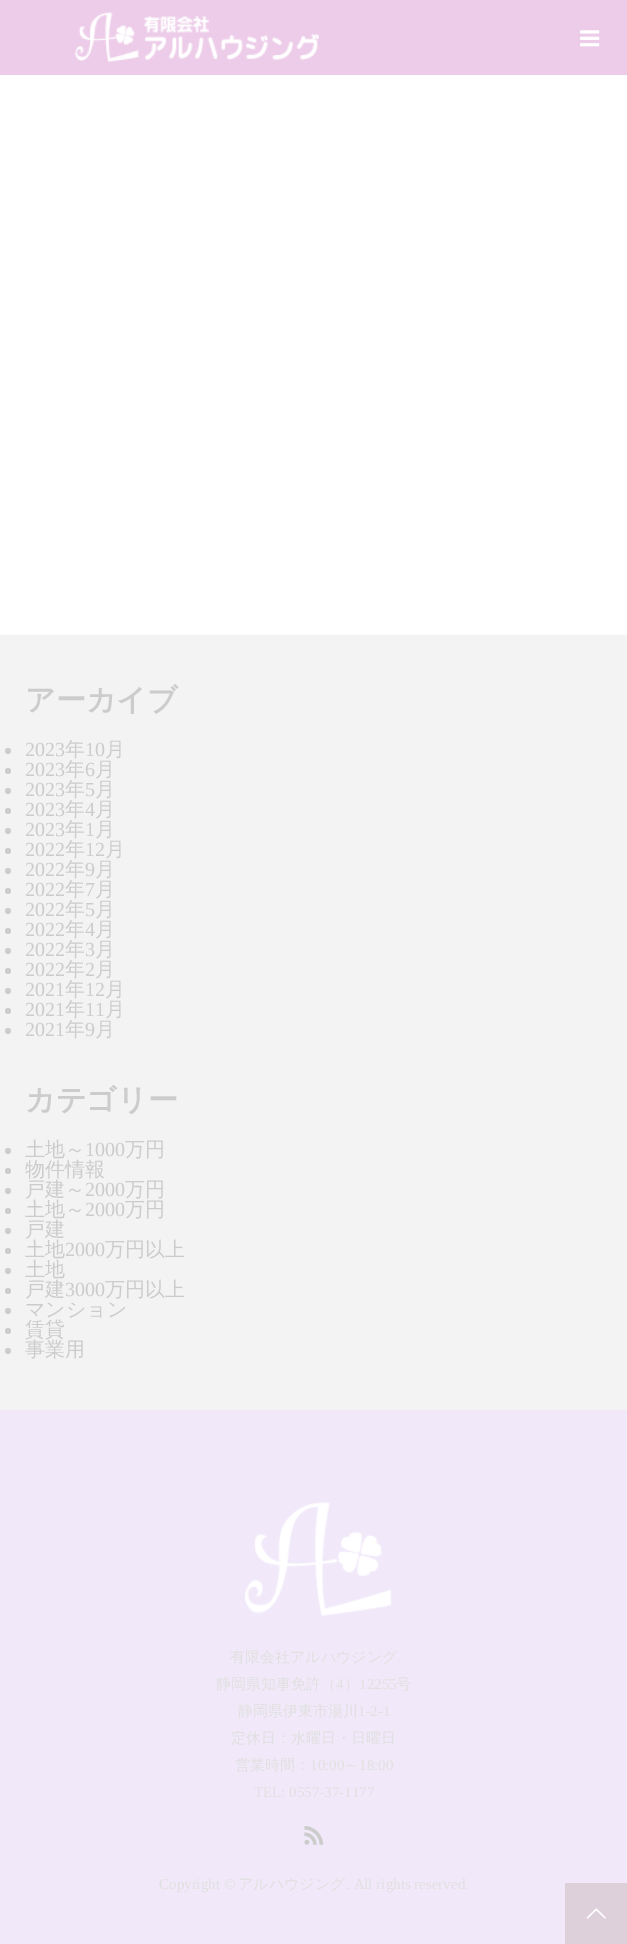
%!PS
<< /PageSize [627 1944] >> setpagedevice
/rgb { 3 { 255 div 3 1 roll } repeat setrgbcolor } def
/font { [ exch dup neg 0 0 3 -1 roll 0 0 ] selectfont } def
/text { moveto show } def
/circle { newpath 0 360 arc closepath } def
/picture { 5 dict begin { /h /w /y /x /name } { exch def } forall
  gsave x y translate w h scale
  w h 8 [w 0 0 h 0 0] name (r) file false 3 colorimage grestore end } def
0 1944 translate 1 -1 scale
4 setmiterlimit
255 255 255 rgb
0 0 627 1944 rectfill
237 204 233 rgb
0 0 627 75 rectfill
(img_01.rgb) 74 12 245 51 picture
(img_02.rgb) 580 30 20 17 picture
241 233 249 rgb
0 1410 627 534 rectfill
252 252 252 rgb
0 634 627 1 rectfill
243 243 243 rgb
0 635 627 775 rectfill
204 204 204 rgb
8 751 3 circle fill
8 771 3 circle fill
8 791 3 circle fill
8 811 3 circle fill
8 831 3 circle fill
8 851 3 circle fill
8 871 3 circle fill
8 891 3 circle fill
8 911 3 circle fill
8 931 3 circle fill
8 951 3 circle fill
8 971 3 circle fill
8 991 3 circle fill
8 1011 3 circle fill
8 1031 3 circle fill
8 1151 3 circle fill
8 1171 3 circle fill
8 1191 3 circle fill
8 1211 3 circle fill
8 1231 3 circle fill
8 1251 3 circle fill
8 1271 3 circle fill
8 1291 3 circle fill
8 1311 3 circle fill
8 1331 3 circle fill
8 1351 3 circle fill
(img_03.rgb) 244 1502 148 114 picture
(img_04.rgb) 304 1826 20 19 picture
221 208 219 rgb
565 1883 62 61 rectfill
(img_05.rgb) 586 1908 20 11 picture
/WenQuanYiZenHei-Bold 30 font
204 204 204 rgb
(アーカイブ) 25 710 text
/LiberationSerif-Regular 20 font
(2023) 25 756 text
/WenQuanYiZenHei-Medium 20 font
(年) 65 756 text
/LiberationSerif-Regular 20 font
(10) 85 756 text
/WenQuanYiZenHei-Medium 20 font
(月) 105 756 text
/LiberationSerif-Regular 20 font
(2023) 25 776 text
/WenQuanYiZenHei-Medium 20 font
(年) 65 776 text
/LiberationSerif-Regular 20 font
(6) 85 776 text
/WenQuanYiZenHei-Medium 20 font
(月) 95 776 text
/LiberationSerif-Regular 20 font
(2023) 25 796 text
/WenQuanYiZenHei-Medium 20 font
(年) 65 796 text
/LiberationSerif-Regular 20 font
(5) 85 796 text
/WenQuanYiZenHei-Medium 20 font
(月) 95 796 text
/LiberationSerif-Regular 20 font
(2023) 25 816 text
/WenQuanYiZenHei-Medium 20 font
(年) 65 816 text
/LiberationSerif-Regular 20 font
(4) 85 816 text
/WenQuanYiZenHei-Medium 20 font
(月) 95 816 text
/LiberationSerif-Regular 20 font
(2023) 25 836 text
/WenQuanYiZenHei-Medium 20 font
(年) 65 836 text
/LiberationSerif-Regular 20 font
(1) 85 836 text
/WenQuanYiZenHei-Medium 20 font
(月) 95 836 text
/LiberationSerif-Regular 20 font
(2022) 25 856 text
/WenQuanYiZenHei-Medium 20 font
(年) 65 856 text
/LiberationSerif-Regular 20 font
(12) 85 856 text
/WenQuanYiZenHei-Medium 20 font
(月) 105 856 text
/LiberationSerif-Regular 20 font
(2022) 25 876 text
/WenQuanYiZenHei-Medium 20 font
(年) 65 876 text
/LiberationSerif-Regular 20 font
(9) 85 876 text
/WenQuanYiZenHei-Medium 20 font
(月) 95 876 text
/LiberationSerif-Regular 20 font
(2022) 25 896 text
/WenQuanYiZenHei-Medium 20 font
(年) 65 896 text
/LiberationSerif-Regular 20 font
(7) 85 896 text
/WenQuanYiZenHei-Medium 20 font
(月) 95 896 text
/LiberationSerif-Regular 20 font
(2022) 25 916 text
/WenQuanYiZenHei-Medium 20 font
(年) 65 916 text
/LiberationSerif-Regular 20 font
(5) 85 916 text
/WenQuanYiZenHei-Medium 20 font
(月) 95 916 text
/LiberationSerif-Regular 20 font
(2022) 25 936 text
/WenQuanYiZenHei-Medium 20 font
(年) 65 936 text
/LiberationSerif-Regular 20 font
(4) 85 936 text
/WenQuanYiZenHei-Medium 20 font
(月) 95 936 text
/LiberationSerif-Regular 20 font
(2022) 25 956 text
/WenQuanYiZenHei-Medium 20 font
(年) 65 956 text
/LiberationSerif-Regular 20 font
(3) 85 956 text
/WenQuanYiZenHei-Medium 20 font
(月) 95 956 text
/LiberationSerif-Regular 20 font
(2022) 25 976 text
/WenQuanYiZenHei-Medium 20 font
(年) 65 976 text
/LiberationSerif-Regular 20 font
(2) 85 976 text
/WenQuanYiZenHei-Medium 20 font
(月) 95 976 text
/LiberationSerif-Regular 20 font
(2021) 25 996 text
/WenQuanYiZenHei-Medium 20 font
(年) 65 996 text
/LiberationSerif-Regular 20 font
(12) 85 996 text
/WenQuanYiZenHei-Medium 20 font
(月) 105 996 text
/LiberationSerif-Regular 20 font
(2021) 25 1016 text
/WenQuanYiZenHei-Medium 20 font
(年) 65 1016 text
/LiberationSerif-Regular 20 font
(11) 85 1016 text
/WenQuanYiZenHei-Medium 20 font
(月) 105 1016 text
/LiberationSerif-Regular 20 font
(2021) 25 1036 text
/WenQuanYiZenHei-Medium 20 font
(年) 65 1036 text
/LiberationSerif-Regular 20 font
(9) 85 1036 text
/WenQuanYiZenHei-Medium 20 font
(月) 95 1036 text
/WenQuanYiZenHei-Bold 30 font
(カテゴリー) 25 1110 text
/WenQuanYiZenHei-Medium 20 font
(土地～) 25 1156 text
/LiberationSerif-Regular 20 font
(1000) 85 1156 text
/WenQuanYiZenHei-Medium 20 font
(万円) 125 1156 text
(物件情報) 25 1176 text
(戸建～) 25 1196 text
/LiberationSerif-Regular 20 font
(2000) 85 1196 text
/WenQuanYiZenHei-Medium 20 font
(万円) 125 1196 text
(土地～) 25 1216 text
/LiberationSerif-Regular 20 font
(2000) 85 1216 text
/WenQuanYiZenHei-Medium 20 font
(万円) 125 1216 text
(戸建) 25 1236 text
(土地) 25 1256 text
/LiberationSerif-Regular 20 font
(2000) 65 1256 text
/WenQuanYiZenHei-Medium 20 font
(万円以上) 105 1256 text
(土地) 25 1276 text
(戸建) 25 1296 text
/LiberationSerif-Regular 20 font
(3000) 65 1296 text
/WenQuanYiZenHei-Medium 20 font
(万円以上) 105 1296 text
(マンション) 25 1316 text
(賃貸) 25 1336 text
(事業用) 25 1356 text
/WenQuanYiZenHei-Medium 15 font
224 224 224 rgb
(有限会社アルハウジング) 230 1662 text
(静岡県知事免許（) 216 1689 text
/LiberationSerif-Regular 15 font
(4) 336 1689 text
/WenQuanYiZenHei-Medium 15 font
(）) 344 1689 text
/LiberationSerif-Regular 15 font
(12255) 359 1689 text
/WenQuanYiZenHei-Medium 15 font
(号) 396 1689 text
(静岡県伊東市湯川) 238 1716 text
/LiberationSerif-Regular 15 font
(1-2-1) 358 1716 text
/WenQuanYiZenHei-Medium 15 font
(定休日：水曜日・日曜日) 231 1743 text
(営業時間：) 235 1770 text
/LiberationSerif-Regular 15 font
(10:00) 310 1770 text
/WenQuanYiZenHei-Medium 15 font
(～) 344 1770 text
/LiberationSerif-Regular 15 font
(18:00) 359 1770 text
(TEL: 0557-37-1177) 254 1797 text
(Copyright ©) 159 1889 text
/WenQuanYiZenHei-Medium 15 font
(アルハウジング) 238 1889 text
/LiberationSerif-Regular 15 font
(. All rights reserved.) 346 1889 text
showpage
